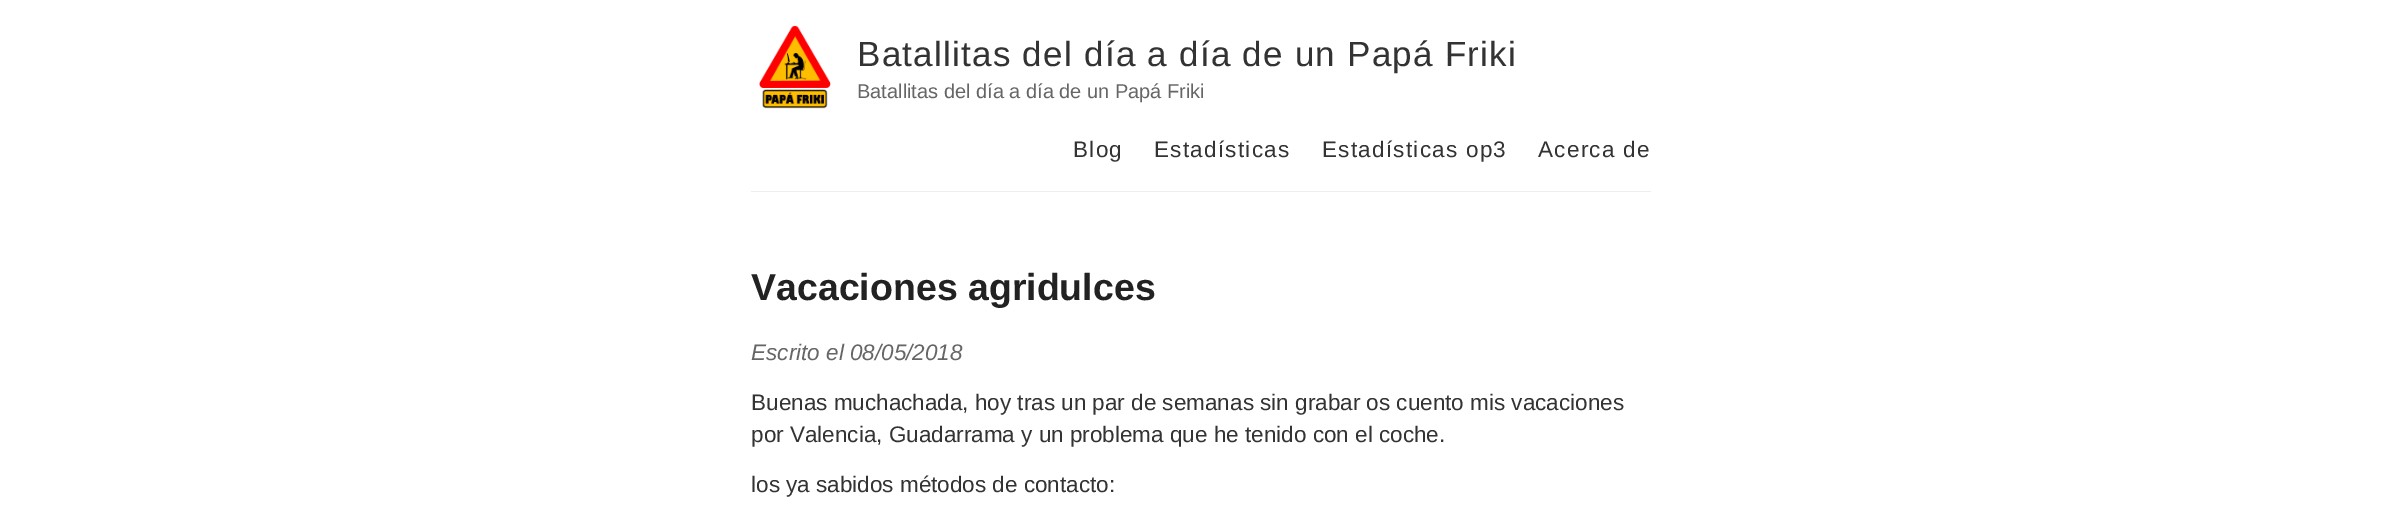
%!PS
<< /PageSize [2401 518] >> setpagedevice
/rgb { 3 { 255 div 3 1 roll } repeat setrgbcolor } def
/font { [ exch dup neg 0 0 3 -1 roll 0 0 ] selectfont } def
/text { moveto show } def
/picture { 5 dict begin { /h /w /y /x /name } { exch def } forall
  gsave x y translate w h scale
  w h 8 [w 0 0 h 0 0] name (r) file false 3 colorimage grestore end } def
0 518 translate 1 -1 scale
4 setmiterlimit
255 255 255 rgb
0 0 2401 518 rectfill
238 238 238 rgb
751 191 900 1 rectfill
(img_01.rgb) 759 25 72 84 picture
/LiberationSans-Regular 35 font
51 51 51 rgb
857 66 moveto 1.25 0 (Batallitas del día a día de un Papá Friki) ashow
/LiberationSans-Regular 20 font
102 102 102 rgb
(Batallitas del día a día de un Papá Friki) 857 98 text
/LiberationSans-Regular 22.5 font
51 51 51 rgb
1073 157 moveto 1.25 0 (Blog) ashow
1154 157 moveto 1.25 0 (Estadísticas) ashow
1322 157 moveto 1.25 0 (Estadísticas op3) ashow
1538 157 moveto 1.25 0 (Acerca de) ashow
/LiberationSans-Bold 37.5 font
34 34 34 rgb
(Vacaciones agridulces) 751 300 text
/LiberationSans-Italic 22.5 font
102 102 102 rgb
(Escrito el 08/05/2018) 751 360 text
/LiberationSans-Regular 22.5 font
51 51 51 rgb
(Buenas muchachada, hoy tras un par de semanas sin grabar os cuento mis vacaciones) 751 410 text
(por Valencia, Guadarrama y un problema que he tenido con el coche.) 751 442 text
(los ya sabidos métodos de contacto:) 751 492 text
showpage
